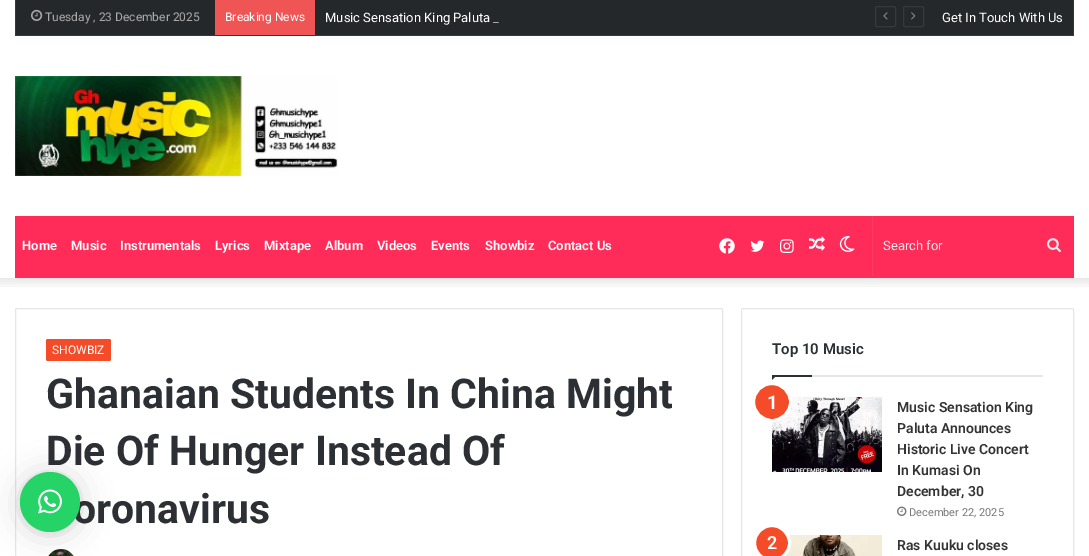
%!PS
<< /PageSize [1089 556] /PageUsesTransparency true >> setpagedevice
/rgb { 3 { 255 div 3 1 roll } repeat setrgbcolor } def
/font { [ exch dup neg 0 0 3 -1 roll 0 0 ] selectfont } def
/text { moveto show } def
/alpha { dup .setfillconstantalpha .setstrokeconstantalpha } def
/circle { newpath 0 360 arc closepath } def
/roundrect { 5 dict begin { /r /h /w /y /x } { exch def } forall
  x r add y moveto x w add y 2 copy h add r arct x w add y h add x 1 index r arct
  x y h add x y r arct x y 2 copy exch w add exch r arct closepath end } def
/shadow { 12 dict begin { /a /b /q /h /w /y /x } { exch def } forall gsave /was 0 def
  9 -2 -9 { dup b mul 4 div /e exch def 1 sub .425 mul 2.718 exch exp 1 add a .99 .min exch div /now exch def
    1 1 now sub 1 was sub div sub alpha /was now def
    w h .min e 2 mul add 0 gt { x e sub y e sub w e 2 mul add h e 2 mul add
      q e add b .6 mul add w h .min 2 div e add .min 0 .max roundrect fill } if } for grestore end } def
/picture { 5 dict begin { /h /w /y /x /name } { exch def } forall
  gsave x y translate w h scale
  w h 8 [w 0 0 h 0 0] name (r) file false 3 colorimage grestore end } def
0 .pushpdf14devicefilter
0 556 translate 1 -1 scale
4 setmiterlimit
255 255 255 rgb
0 0 1089 556 rectfill
gsave
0 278 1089 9 rectclip
0 0 0 rgb
-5 -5 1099 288 0 5 0.1 shadow
grestore
37 40 43 rgb
15 0 1059 36 rectfill
54 57 60 rgb
1074 0 moveto 0 36 rlineto -1 -1 rlineto 0 -35 rlineto closepath fill
0.08 alpha
255 255 255 rgb
1074 36 moveto -1059 0 rlineto 1 -1 rlineto 1057 0 rlineto closepath fill
15 36 moveto 0 -36 rlineto 1 0 rlineto 0 35 rlineto closepath fill
1 alpha
(img_01.rgb) 31 9 12 12 picture
240 85 85 rgb
215 0 100 35 rectfill
54 57 60 rgb
875.5 6.5 20 20 1.5 roundrect stroke
(img_02.rgb) 883 12 5 8 picture
903.5 6.5 20 20 1.5 roundrect stroke
(img_03.rgb) 911 12 5 8 picture
(img_04.rgb) 15 76 323 100 picture
255 43 88 rgb
15 216 1059 62 rectfill
(img_05.rgb) 719 238 16 16 picture
(img_06.rgb) 750 240 15 12 picture
(img_07.rgb) 780 239 14 14 picture
(img_08.rgb) 809 236 16 15 picture
(img_09.rgb) 839 236 16 16 picture
255 58 100 rgb
872 216 1 60 rectfill
(img_10.rgb) 1047 238 14 15 picture
230 230 230 rgb
15.5 308.5 707 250 1.5 roundrect stroke
244 75 41 rgb
46 339 65 22 2 roundrect fill
(img_11.rgb) 48 549 26 7 picture
230 230 230 rgb
741.5 308.5 332 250 1.5 roundrect stroke
812 375 231 2 rectfill
44 47 52 rgb
772 375 moveto 5 0 rlineto -5 5 rlineto closepath fill
772 375 40 2 rectfill
(img_12.rgb) 772 397 110 75 picture
244 75 41 rgb
772 402 18.5 circle gsave fill grestore
255 255 255 rgb
3 setlinewidth
stroke
(img_13.rgb) 897 506 10 10 picture
(img_14.rgb) 785 535 97 21 picture
244 75 41 rgb
772 543 17.5 circle gsave fill grestore
255 255 255 rgb
stroke
0 0 0 rgb
20 474 60 60 30 16 0.16 shadow
20 473 60 60 30 3 0.06 shadow
/Roboto-Regular 12 font
170 170 170 rgb
(Tuesday , 23 December 2025) 45 21 text
255 255 255 rgb
(Breaking News) 225 21 text
/Roboto-Regular 13 font
(Music Sensation King Paluta) 325 22 text
170 170 170 rgb
(_) 493 22 text
255 255 255 rgb
(Get In Touch With Us) 942 22 text
/Roboto-SemiBold 13 font
(Home) 22 250 text
(Music) 71 250 text
(Instrumentals) 120 250 text
(Lyrics) 215 250 text
(Mixtape) 264 250 text
(Album) 325 250 text
(Videos) 377 250 text
(Events) 431 250 text
(Showbiz) 485 250 text
(Contact Us) 548 250 text
/Roboto-Regular 13 font
232 232 232 rgb
(Search for) 883 250 text
/Roboto-Regular 12 font
255 255 255 rgb
(SHOWBIZ) 52 354 text
/Roboto-Bold 41 font
44 47 52 rgb
(Ghanaian Students In China Might) 46 408 text
(Die Of Hunger Instead Of) 46 465 text
(oronavirus) 73 523 text
/Roboto-SemiBold 15 font
(Top 10 Music) 772 354 text
/Roboto-SemiBold 19 font
255 255 255 rgb
(1) 767 409 text
/Roboto-SemiBold 14 font
51 51 51 rgb
(Music Sensation King) 897 412 text
(Paluta Announces) 897 433 text
(Historic Live Concert) 897 454 text
(In Kumasi On) 897 475 text
(December, 30) 897 496 text
/Roboto-Regular 11 font
118 118 118 rgb
(December 22, 2025) 909 516 text
/Roboto-SemiBold 18 font
255 255 255 rgb
(2) 767 549 text
/Roboto-SemiBold 14 font
51 51 51 rgb
(Ras Kuuku closes) 897 550 text
37 211 102 rgb
50 502 30 circle fill
(img_15.rgb) 38 489 24 25 picture
.poppdf14devicefilter showpage
